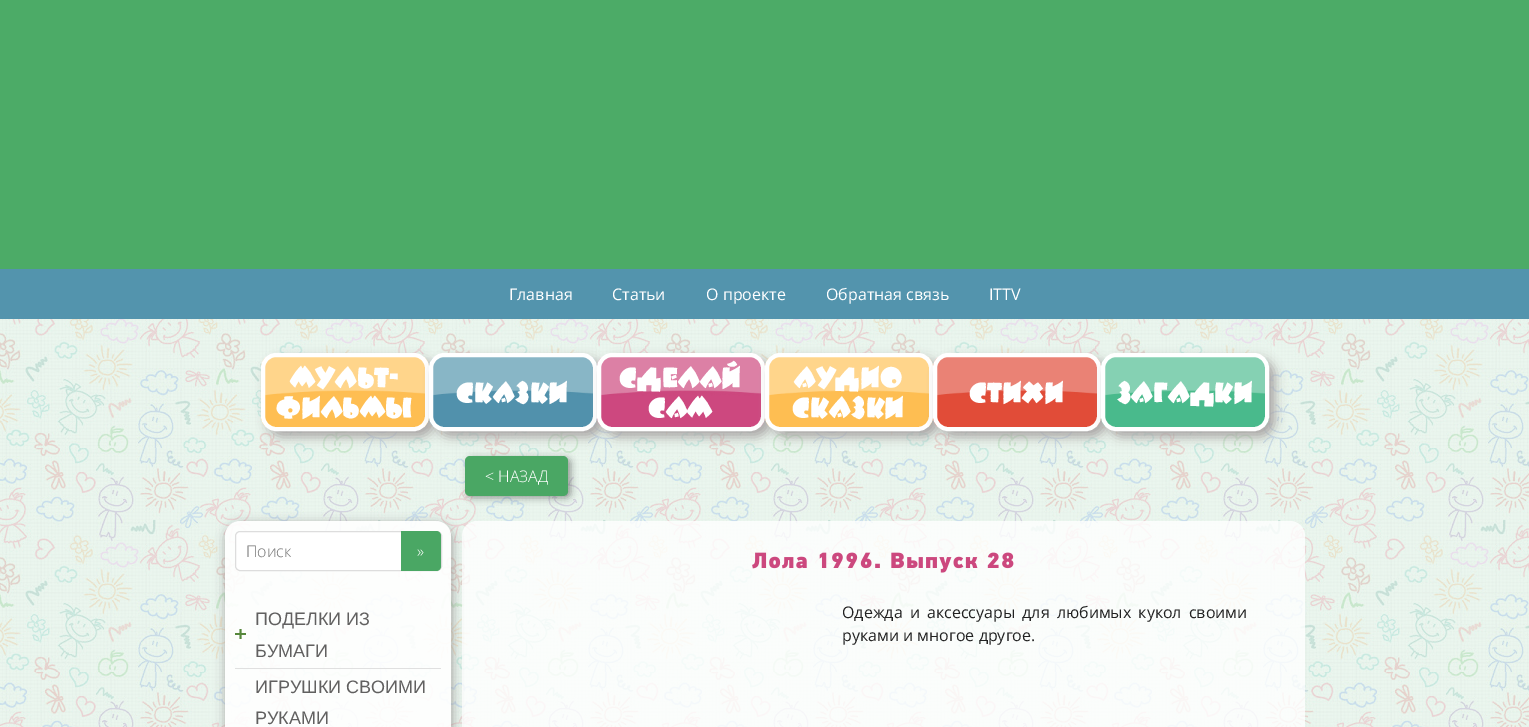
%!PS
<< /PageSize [1529 727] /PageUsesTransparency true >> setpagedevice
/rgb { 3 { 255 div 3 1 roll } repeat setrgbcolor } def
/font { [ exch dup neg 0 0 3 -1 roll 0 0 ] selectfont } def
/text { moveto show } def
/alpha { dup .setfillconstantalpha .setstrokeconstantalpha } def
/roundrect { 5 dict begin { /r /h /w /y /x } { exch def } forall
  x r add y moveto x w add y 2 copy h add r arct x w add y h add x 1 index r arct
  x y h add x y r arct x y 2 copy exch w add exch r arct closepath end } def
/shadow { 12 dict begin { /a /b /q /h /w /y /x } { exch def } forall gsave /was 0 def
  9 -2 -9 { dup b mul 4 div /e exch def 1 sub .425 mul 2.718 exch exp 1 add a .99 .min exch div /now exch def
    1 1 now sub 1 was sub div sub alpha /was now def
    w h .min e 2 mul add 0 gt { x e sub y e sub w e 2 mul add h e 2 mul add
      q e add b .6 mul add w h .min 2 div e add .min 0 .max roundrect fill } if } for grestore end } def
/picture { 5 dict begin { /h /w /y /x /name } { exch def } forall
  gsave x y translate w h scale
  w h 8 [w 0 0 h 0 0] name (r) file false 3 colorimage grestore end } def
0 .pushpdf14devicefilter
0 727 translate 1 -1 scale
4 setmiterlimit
255 255 255 rgb
0 0 1529 727 rectfill
(img_01.rgb) 0 319 1529 408 picture
76 171 103 rgb
0 0 1529 269 rectfill
83 148 173 rgb
0 269 1529 50 rectfill
169 165 165 rgb
267 359 168 78 15 5.5 1 shadow
(img_02.rgb) 261 357 168 70 picture
255 255 255 rgb
4 setlinewidth
263 355 164 74 13 roundrect stroke
169 165 165 rgb
435 359 168 78 15 5.5 1 shadow
(img_03.rgb) 429 357 168 70 picture
255 255 255 rgb
431 355 164 74 13 roundrect stroke
169 165 165 rgb
603 359 168 78 15 5.5 1 shadow
(img_04.rgb) 597 357 168 70 picture
255 255 255 rgb
599 355 164 74 13 roundrect stroke
169 165 165 rgb
771 359 168 78 15 5.5 1 shadow
(img_05.rgb) 765 357 168 70 picture
255 255 255 rgb
767 355 164 74 13 roundrect stroke
169 165 165 rgb
939 359 168 78 15 5.5 1 shadow
(img_06.rgb) 933 357 168 70 picture
255 255 255 rgb
935 355 164 74 13 roundrect stroke
169 165 165 rgb
1107 359 168 78 15 5.5 1 shadow
(img_07.rgb) 1101 357 168 70 picture
255 255 255 rgb
1103 355 164 74 13 roundrect stroke
0 0 0 rgb
468 458 103 40 5 3.5 0.35 shadow
74 167 100 rgb
465 456 103 40 5 roundrect fill
0.8 alpha
255 255 255 rgb
462 521 843 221 15 roundrect fill
gsave
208 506 moveto 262 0 rlineto 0 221 rlineto -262 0 rlineto closepath 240 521 moveto 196 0 rlineto 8.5 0 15 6.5 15 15 rcurveto 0 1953 rlineto 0 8.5 -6.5 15 -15 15 rcurveto -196 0 rlineto -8.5 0 -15 -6.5 -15 -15 rcurveto 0 -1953 rlineto 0 -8.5 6.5 -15 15 -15 rcurveto closepath eoclip newpath
1 alpha
142 135 135 rgb
226 524 226 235 15 5.5 0.78 shadow
grestore
0.9 alpha
225 521 226 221 15 roundrect fill
1 alpha
235.5 531.5 206 39 4.5 roundrect gsave fill grestore
221 221 221 rgb
1 setlinewidth
stroke
74 167 100 rgb
401 531 moveto 35 0 rlineto 3 0 5 2 5 5 rcurveto 0 30 rlineto 0 3 -2 5 -5 5 rcurveto -35 0 rlineto closepath fill
(img_08.rgb) 235 629 11 10 picture
224 224 224 rgb
235 668 206 1 rectfill
(img_09.rgb) 752 552 262 21 picture
/OpenSans-Regular 16 font
255 255 255 rgb
(Главная) 509 300 text
(Статьи) 612 300 text
(О проекте) 706 300 text
(Обратная связь) 826 300 text
(ITTV) 989 300 text
/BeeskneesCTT-Regular 28 font
(Мульт-) 290 387 text
(фильмы) 276 417 text
(Сказки) 456 402 text
(Сделай) 619 387 text
(сам) 648 417 text
(Аудио) 794 387 text
(сказки) 792 417 text
(Стихи) 969 402 text
(Загадки) 1116 402 text
/OpenSans-Light 16 font
(< НАЗАД) 485 482 text
117 117 117 rgb
(Поиск) 246 557 text
255 255 255 rgb
(») 417 557 text
/Arimo-Regular 18 font
97 96 96 rgb
(ПОДЕЛКИ ИЗ) 255 625 text
(БУМАГИ) 255 657 text
(ИГРУШКИ СВОИМИ) 255 693 text
(РУКАМИ) 255 724 text
/OpenSans-Regular 16 font
34 34 34 rgb
842 618 moveto 3 0 32 (Одежда и аксессуары для любимых кукол своими) widthshow
(руками и многое другое.) 842 641 text
.poppdf14devicefilter showpage
